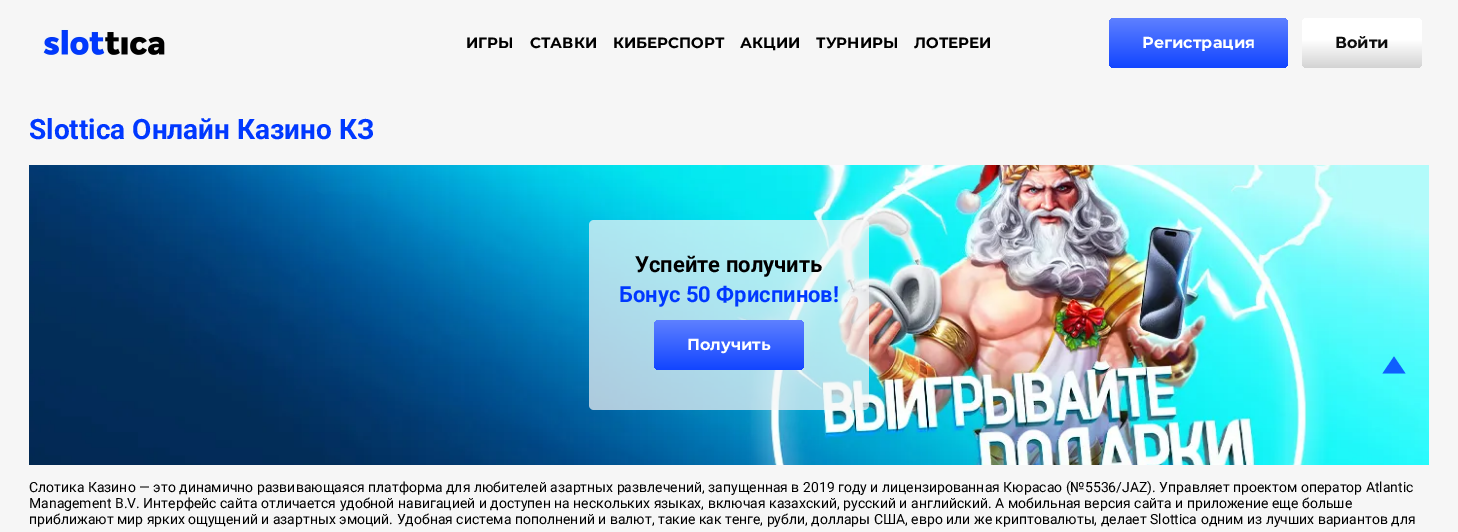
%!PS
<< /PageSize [1458 532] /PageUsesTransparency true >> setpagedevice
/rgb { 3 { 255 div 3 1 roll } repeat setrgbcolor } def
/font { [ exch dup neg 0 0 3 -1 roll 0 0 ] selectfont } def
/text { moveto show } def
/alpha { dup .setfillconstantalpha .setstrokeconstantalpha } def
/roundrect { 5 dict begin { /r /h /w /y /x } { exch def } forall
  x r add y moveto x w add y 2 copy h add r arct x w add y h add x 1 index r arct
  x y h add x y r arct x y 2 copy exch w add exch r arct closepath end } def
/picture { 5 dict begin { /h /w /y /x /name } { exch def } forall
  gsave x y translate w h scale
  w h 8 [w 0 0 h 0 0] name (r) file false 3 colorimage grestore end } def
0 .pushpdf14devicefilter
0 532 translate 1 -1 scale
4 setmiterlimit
246 246 246 rgb
0 0 1458 532 rectfill
(img_01.rgb) 43 29 122 26 picture
gsave 1109 18 179 50 5 roundrect clip newpath
<< /ShadingType 2 /ColorSpace /DeviceRGB /Coords [1199 18 1199 68] /Extend [true true] /Function << /FunctionType 2 /Domain [0 1] /C0 [0.369 0.502 1] /C1 [0.071 0.271 1] /N 1 >> >> shfill grestore
gsave 1302 18 120 50 5 roundrect clip newpath
<< /ShadingType 2 /ColorSpace /DeviceRGB /Coords [1362 18 1362 68] /Extend [true true] /Function << /FunctionType 3 /Domain [0 1] /Functions [<< /FunctionType 2 /Domain [0 1] /C0 [1 1 1] /C1 [1 1 1] /N 1 >> << /FunctionType 2 /Domain [0 1] /C0 [1 1 1] /C1 [0.827 0.827 0.827] /N 1 >>] /Bounds [0.44] /Encode [0 1 0 1] >> >> shfill grestore
(img_02.rgb) 29 165 1400 300 picture
0.7 alpha
589 220 280 190 5 roundrect fill
1 alpha
gsave 654 320 150 50 5 roundrect clip newpath
<< /ShadingType 2 /ColorSpace /DeviceRGB /Coords [729 320 729 370] /Extend [true true] /Function << /FunctionType 2 /Domain [0 1] /C0 [0.369 0.502 1] /C1 [0.071 0.271 1] /N 1 >> >> shfill grestore
0.8 alpha
0 56 255 rgb
1382.5 373.5 moveto 11.5 -17 rlineto 11.5 17 rlineto closepath fill
/Montserrat-Bold 15 font
1 alpha
0 0 0 rgb
(ИГРЫ) 466 48 text
(СТАВКИ) 530 48 text
(КИБЕРСПОРТ) 613 48 text
(АКЦИИ) 740 48 text
(ТУРНИРЫ) 816 48 text
(ЛОТЕРЕИ) 914 48 text
/Montserrat-Bold 16 font
255 255 255 rgb
(Регистрация) 1142 48 text
12 12 12 rgb
(Войти) 1335 48 text
/Roboto-Bold 28 font
0 56 255 rgb
(Slottica Онлайн Казино КЗ) 29 139 text
/Roboto-Bold 22 font
0 0 0 rgb
(Успейте получить) 635 272 text
0 56 255 rgb
(Бонус 50 Фриспинов!) 619 302 text
/Montserrat-Bold 16 font
255 255 255 rgb
(Получить) 687 350 text
/Roboto-Regular 14 font
0 0 0 rgb
(Слотика Казино — это динамично развивающаяся платформа для любителей азартных развлечений, запущенная в 2019 году и лицензированная Кюрасао \(№5536/JAZ\). Управляет проектом оператор Atlantic) 29 492 text
(Management B.V. Интерфейс сайта отличается удобной навигацией и доступен на нескольких языках, включая казахский, русский и английский. А мобильная версия сайта и приложение еще больше) 29 508 text
(приближают мир ярких ощущений и азартных эмоций. Удобная система пополнений и валют, такие как тенге, рубли, доллары США, евро или же криптовалюты, делает Slottica одним из лучших вариантов для) 29 524 text
.poppdf14devicefilter showpage
